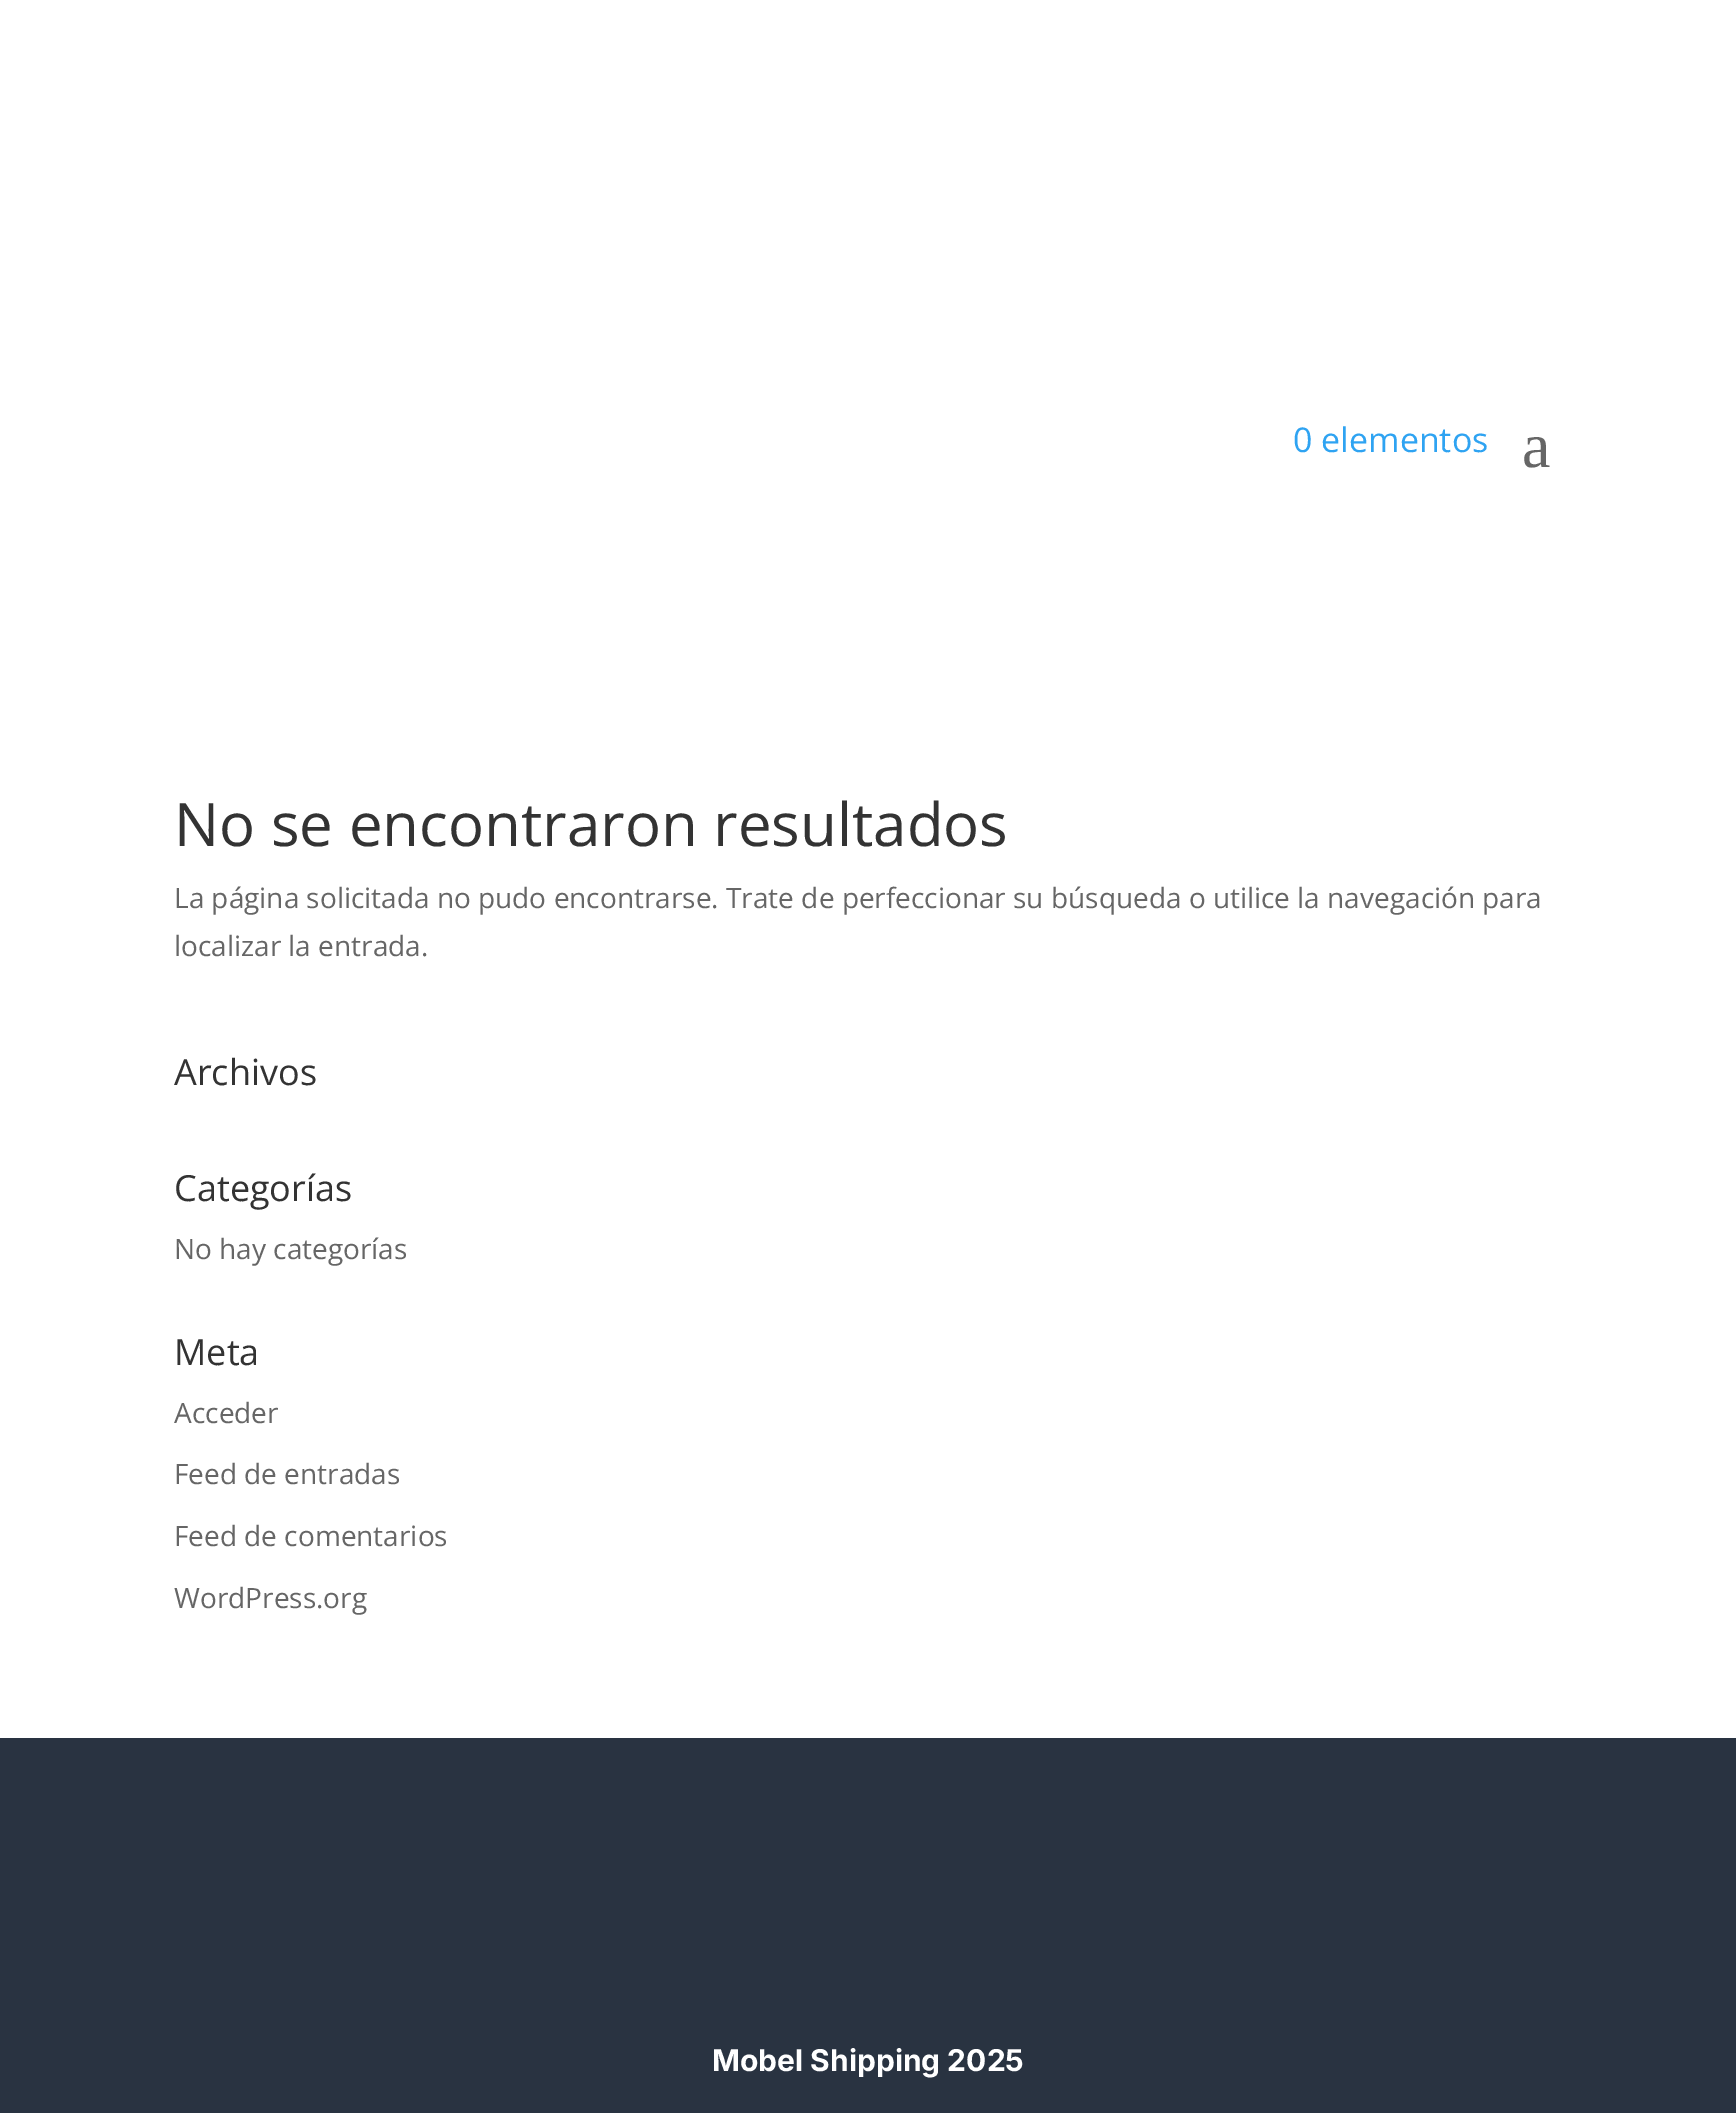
%!PS
<< /PageSize [1736 2113] >> setpagedevice
/rgb { 3 { 255 div 3 1 roll } repeat setrgbcolor } def
/font { [ exch dup neg 0 0 3 -1 roll 0 0 ] selectfont } def
/text { moveto show } def
0 2113 translate 1 -1 scale
4 setmiterlimit
255 255 255 rgb
0 0 1736 2113 rectfill
41 51 65 rgb
0 1738 1736 375 rectfill
/OpenSans-Regular 34 font
46 163 242 rgb
(0 elementos) 1293 452 text
/LiberationSerif-Regular 64 font
102 102 102 rgb
(a) 1522 467 text
/OpenSans-Regular 60 font
51 51 51 rgb
(No se encontraron resultados) 174 846 text
/OpenSans-Regular 28 font
102 102 102 rgb
(La página solicitada no pudo encontrarse. Trate de perfeccionar su búsqueda o utilice la navegación para) 174 908 text
(localizar la entrada.) 174 956 text
/OpenSans-Regular 36 font
51 51 51 rgb
(Archivos) 174 1085 text
(Categorías) 174 1201 text
/OpenSans-Regular 28 font
102 102 102 rgb
(No hay categorías) 174 1259 text
/OpenSans-Regular 36 font
51 51 51 rgb
(Meta) 174 1365 text
/OpenSans-Regular 28 font
102 102 102 rgb
(Acceder) 174 1423 text
(Feed de entradas) 174 1484 text
(Feed de comentarios) 174 1546 text
(WordPress.org) 174 1608 text
/Inter-Bold 30 font
255 255 255 rgb
(Mobel Shipping 2025) 712 2071 text
showpage
